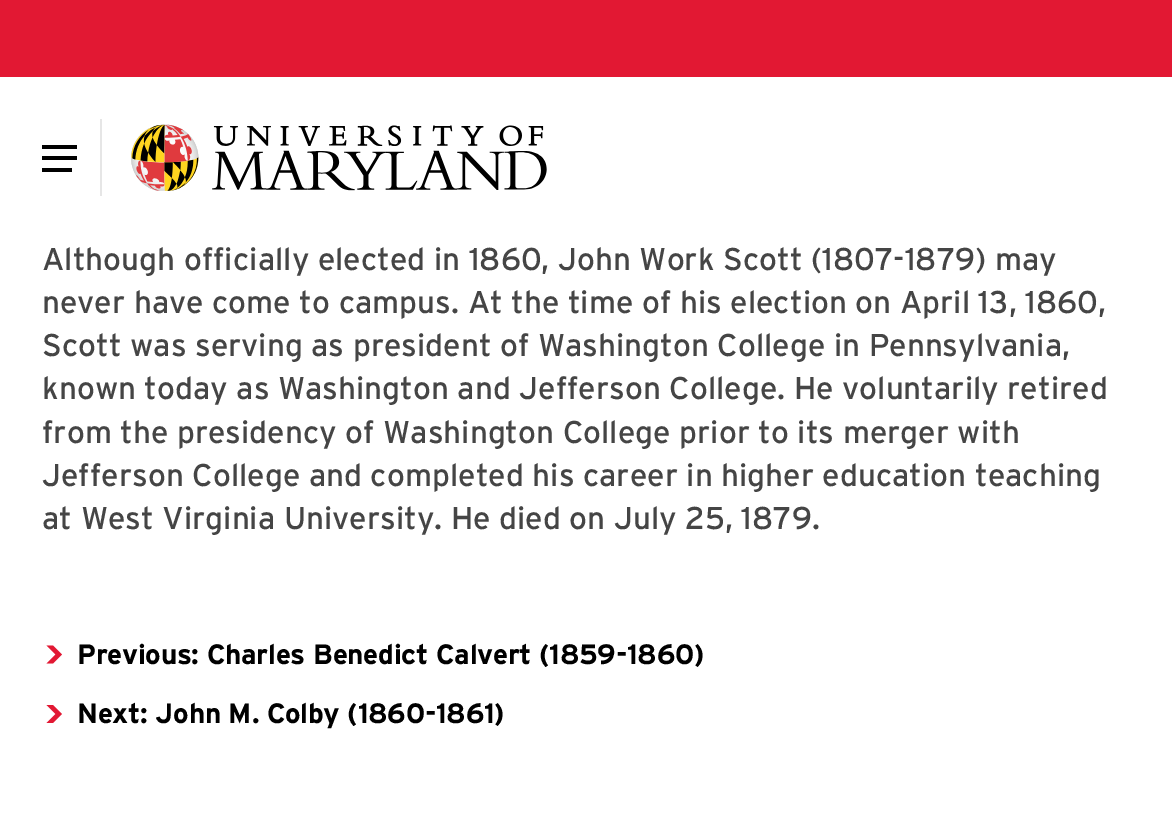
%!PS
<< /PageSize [1172 825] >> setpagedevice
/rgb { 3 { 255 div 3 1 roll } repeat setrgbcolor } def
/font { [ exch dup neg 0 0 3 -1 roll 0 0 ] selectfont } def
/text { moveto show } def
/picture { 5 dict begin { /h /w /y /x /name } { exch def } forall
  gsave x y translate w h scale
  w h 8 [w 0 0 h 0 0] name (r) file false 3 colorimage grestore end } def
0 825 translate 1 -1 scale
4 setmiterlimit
255 255 255 rgb
0 0 1172 825 rectfill
226 24 51 rgb
0 0 1172 77 rectfill
230 230 230 rgb
100 119 2 77 rectfill
0 0 0 rgb
42 145 35 4 rectfill
42 156 35 4 rectfill
42 168 30 4 rectfill
(img_01.rgb) 131 124 416 67 picture
226 24 51 rgb
55.5 654.5 moveto -9 -9 rlineto 6.5 0 rlineto 9 9 rlineto -9 9 rlineto -6.5 0 rlineto closepath eofill
55.5 714 moveto -9 -9 rlineto 6.5 0 rlineto 9 9 rlineto -9 9 rlineto -6.5 0 rlineto closepath eofill
/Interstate-Regular 31.5 font
69 69 69 rgb
(Although officially elected in 1860, John Work Scott \(1807-1879\) may) 42 270 text
(never have come to campus. At the time of his election on April 13, 1860,) 42 313 text
(Scott was serving as president of Washington College in Pennsylvania,) 42 356 text
(known today as Washington and Jefferson College. He voluntarily retired) 42 399 text
(from the presidency of Washington College prior to its merger with) 42 443 text
(Jefferson College and completed his career in higher education teaching) 42 486 text
(at West Virginia University. He died on July 25, 1879.) 42 529 text
/Interstate-Bold 28 font
0 0 0 rgb
77 664 moveto -0.3 0 (Previous: Charles Benedict Calvert \(1859-1860\)) ashow
77 723 moveto -0.3 0 (Next: John M. Colby \(1860-1861\)) ashow
showpage
